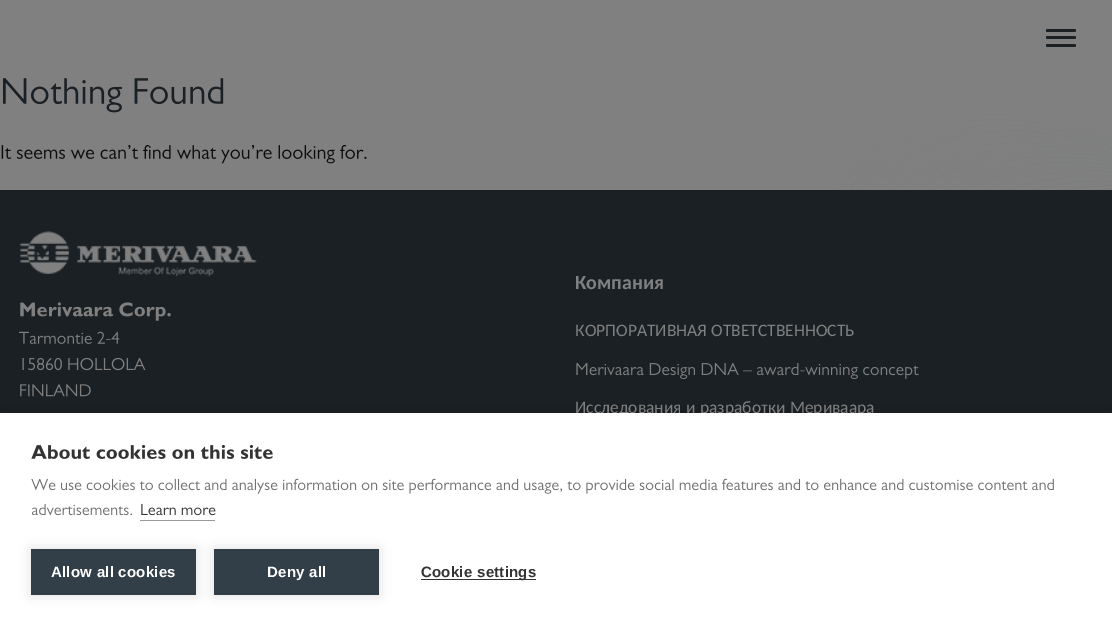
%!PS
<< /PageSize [1112 626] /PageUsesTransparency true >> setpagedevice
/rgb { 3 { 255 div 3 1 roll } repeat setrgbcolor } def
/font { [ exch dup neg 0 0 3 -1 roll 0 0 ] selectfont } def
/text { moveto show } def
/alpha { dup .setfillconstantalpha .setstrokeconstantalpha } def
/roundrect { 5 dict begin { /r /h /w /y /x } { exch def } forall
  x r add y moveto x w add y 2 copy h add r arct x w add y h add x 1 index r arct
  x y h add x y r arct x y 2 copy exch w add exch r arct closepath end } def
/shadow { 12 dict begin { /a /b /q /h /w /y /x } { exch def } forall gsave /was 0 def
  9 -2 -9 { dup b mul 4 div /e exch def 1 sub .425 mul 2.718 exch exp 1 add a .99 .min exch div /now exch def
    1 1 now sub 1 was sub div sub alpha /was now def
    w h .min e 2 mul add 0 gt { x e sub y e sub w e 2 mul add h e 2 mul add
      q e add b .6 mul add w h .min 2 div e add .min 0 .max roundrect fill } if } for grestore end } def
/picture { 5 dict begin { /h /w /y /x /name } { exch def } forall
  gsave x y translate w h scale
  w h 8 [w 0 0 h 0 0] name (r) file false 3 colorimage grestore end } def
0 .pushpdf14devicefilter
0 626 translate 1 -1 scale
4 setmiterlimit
128 128 128 rgb
0 0 1112 626 rectfill
26 32 36 rgb
1046 29 30 3 1.5 roundrect fill
1046 36 30 3 1.5 roundrect fill
1046 44 30 3 1.5 roundrect fill
(img_01.rgb) 839 114 273 76 picture
(img_02.rgb) 3 78 221 35 picture
(img_03.rgb) 1 144 366 20 picture
0 190 1112 223 rectfill
(img_04.rgb) 19 231 238 46 picture
(img_05.rgb) 20 302 151 19 picture
(img_06.rgb) 18 331 102 13 picture
(img_07.rgb) 22 357 124 14 picture
(img_08.rgb) 20 384 71 13 picture
(img_09.rgb) 576 363 343 16 picture
0 0 0 rgb
0 413 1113 213 0 12.5 0.1 shadow
/Carlito-Bold 20 font
128 128 128 rgb
(Компания) 575 289 text
/Carlito-Regular 17.5 font
575 336 moveto 0.5 0 32 (КОРПОРАТИВНАЯ ОТВЕТСТВЕННОСТЬ) widthshow
575 413 moveto 0.5 0 32 (Исследования и разработки Мериваара) widthshow
255 255 255 rgb
0 413 1112 213 rectfill
(img_10.rgb) 31 444 242 15 picture
(img_11.rgb) 31 478 1023 16 picture
(img_12.rgb) 32 503 100 13 picture
(img_13.rgb) 141 503 75 13 picture
153 153 153 rgb
140 520 75 1 rectfill
0 0 0 rgb
31 549 165 46 0 6 0.12 shadow
50 63 72 rgb
31 549 165 46 rectfill
/LiberationSans-Bold 15 font
255 255 255 rgb
51 577 moveto 0.25 0 (Allow all cookies) ashow
0 0 0 rgb
214 549 165 46 0 6 0.12 shadow
50 63 72 rgb
214 549 165 46 rectfill
255 255 255 rgb
267 577 moveto 0.25 0 (Deny all) ashow
51 51 51 rgb
421 579 115 1 rectfill
421 577 moveto 0.25 0 (Cookie settings) ashow
.poppdf14devicefilter showpage
